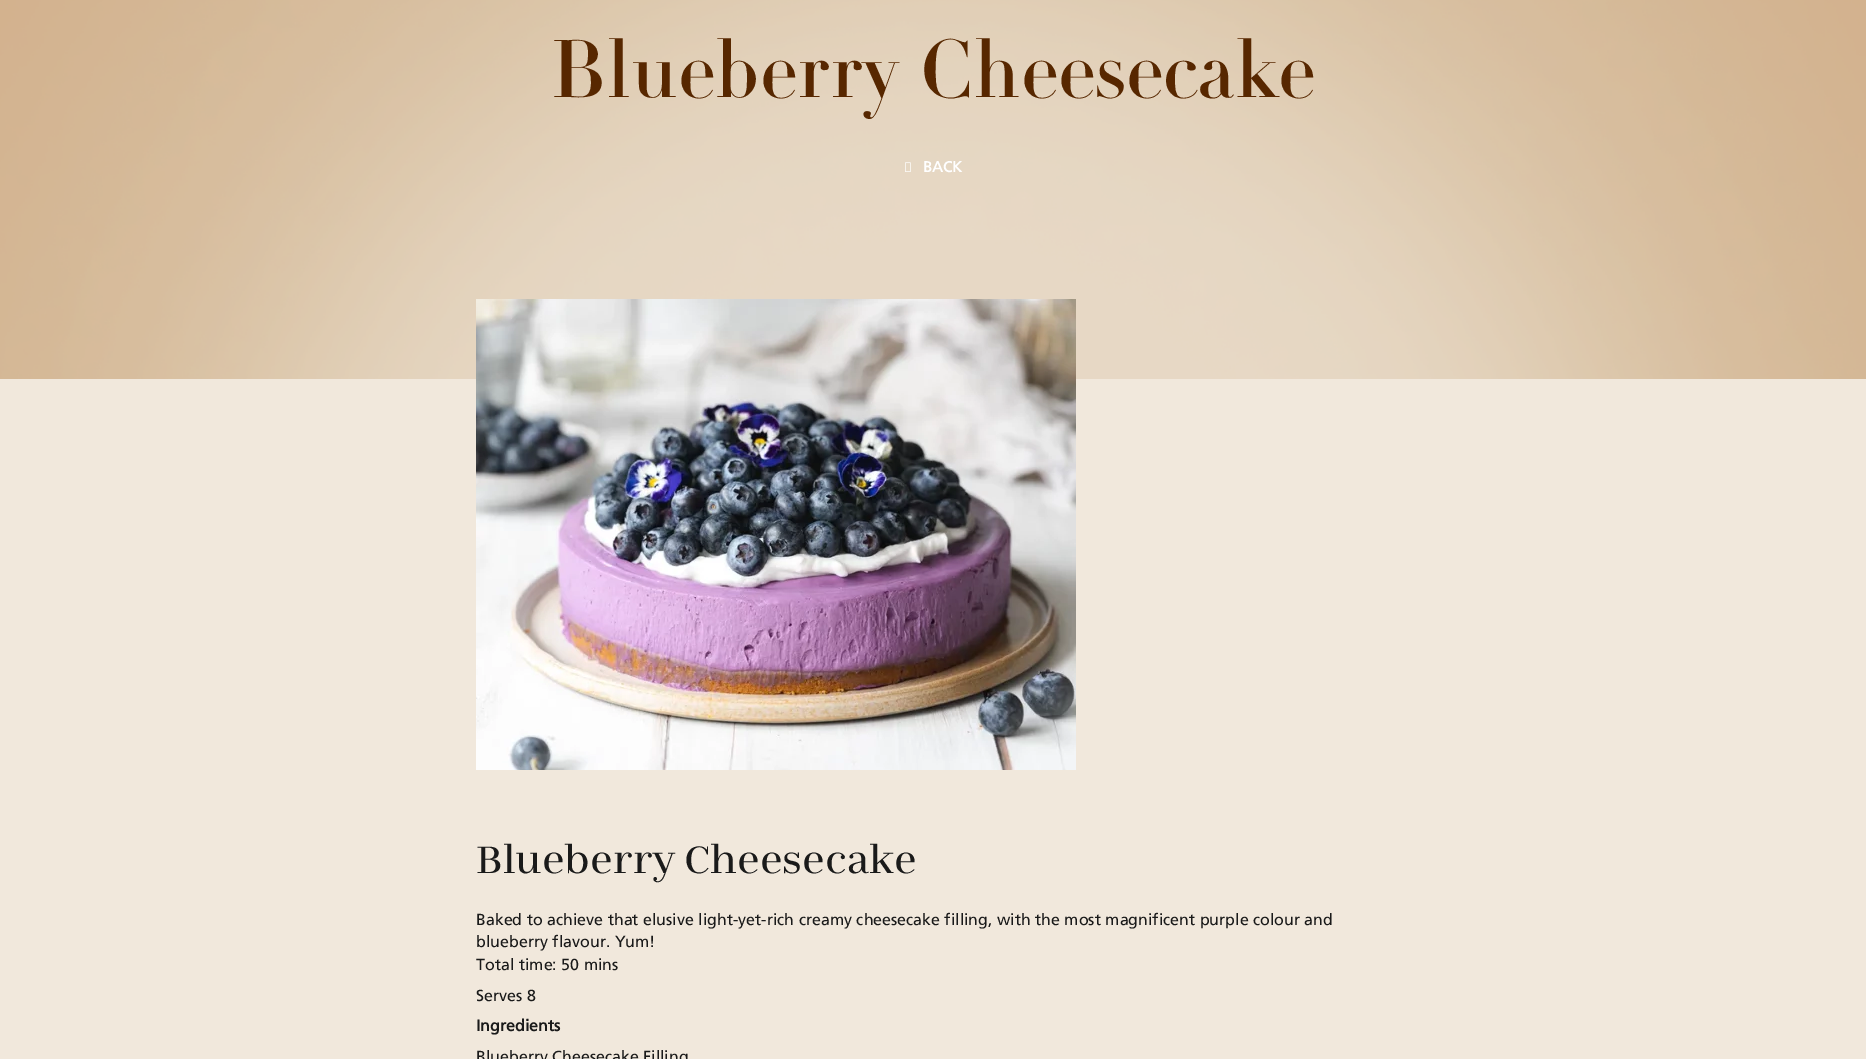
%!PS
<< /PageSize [1866 1059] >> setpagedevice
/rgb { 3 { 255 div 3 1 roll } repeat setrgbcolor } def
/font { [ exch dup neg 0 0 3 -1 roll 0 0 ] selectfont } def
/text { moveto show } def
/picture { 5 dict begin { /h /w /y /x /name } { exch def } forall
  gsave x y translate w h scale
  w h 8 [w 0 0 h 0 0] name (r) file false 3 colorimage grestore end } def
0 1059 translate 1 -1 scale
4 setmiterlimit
241 232 220 rgb
0 0 1866 1059 rectfill
(img_01.rgb) 0 0 1866 379 picture
(img_02.rgb) 905 162 6 10 picture
(img_03.rgb) 476 299 600 471 picture
/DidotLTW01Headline-Regular 80 font
87 39 0 rgb
(Blueberry Cheesecake) 551 97 text
/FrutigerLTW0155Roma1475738-Bold 15 font
255 255 255 rgb
(BACK) 923 172 text
/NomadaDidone-Regular 39 font
26 26 26 rgb
(Blueberry Cheesecake) 476 873 text
/FrutigerLTW0155Roma1475738-Regular 16 font
(Baked to achieve that elusive light-yet-rich creamy cheesecake filling, with the most magnificent purple colour and) 476 925 text
(blueberry flavour. Yum!) 476 947 text
(Total time: 50 mins) 476 970 text
(Serves 8) 476 1001 text
/FrutigerLTW0155Roma1475738-Bold 16 font
(Ingredients) 476 1031 text
/FrutigerLTW0155Roma1475738-Regular 16 font
(Blueberry Cheesecake Filling) 476 1062 text
showpage
